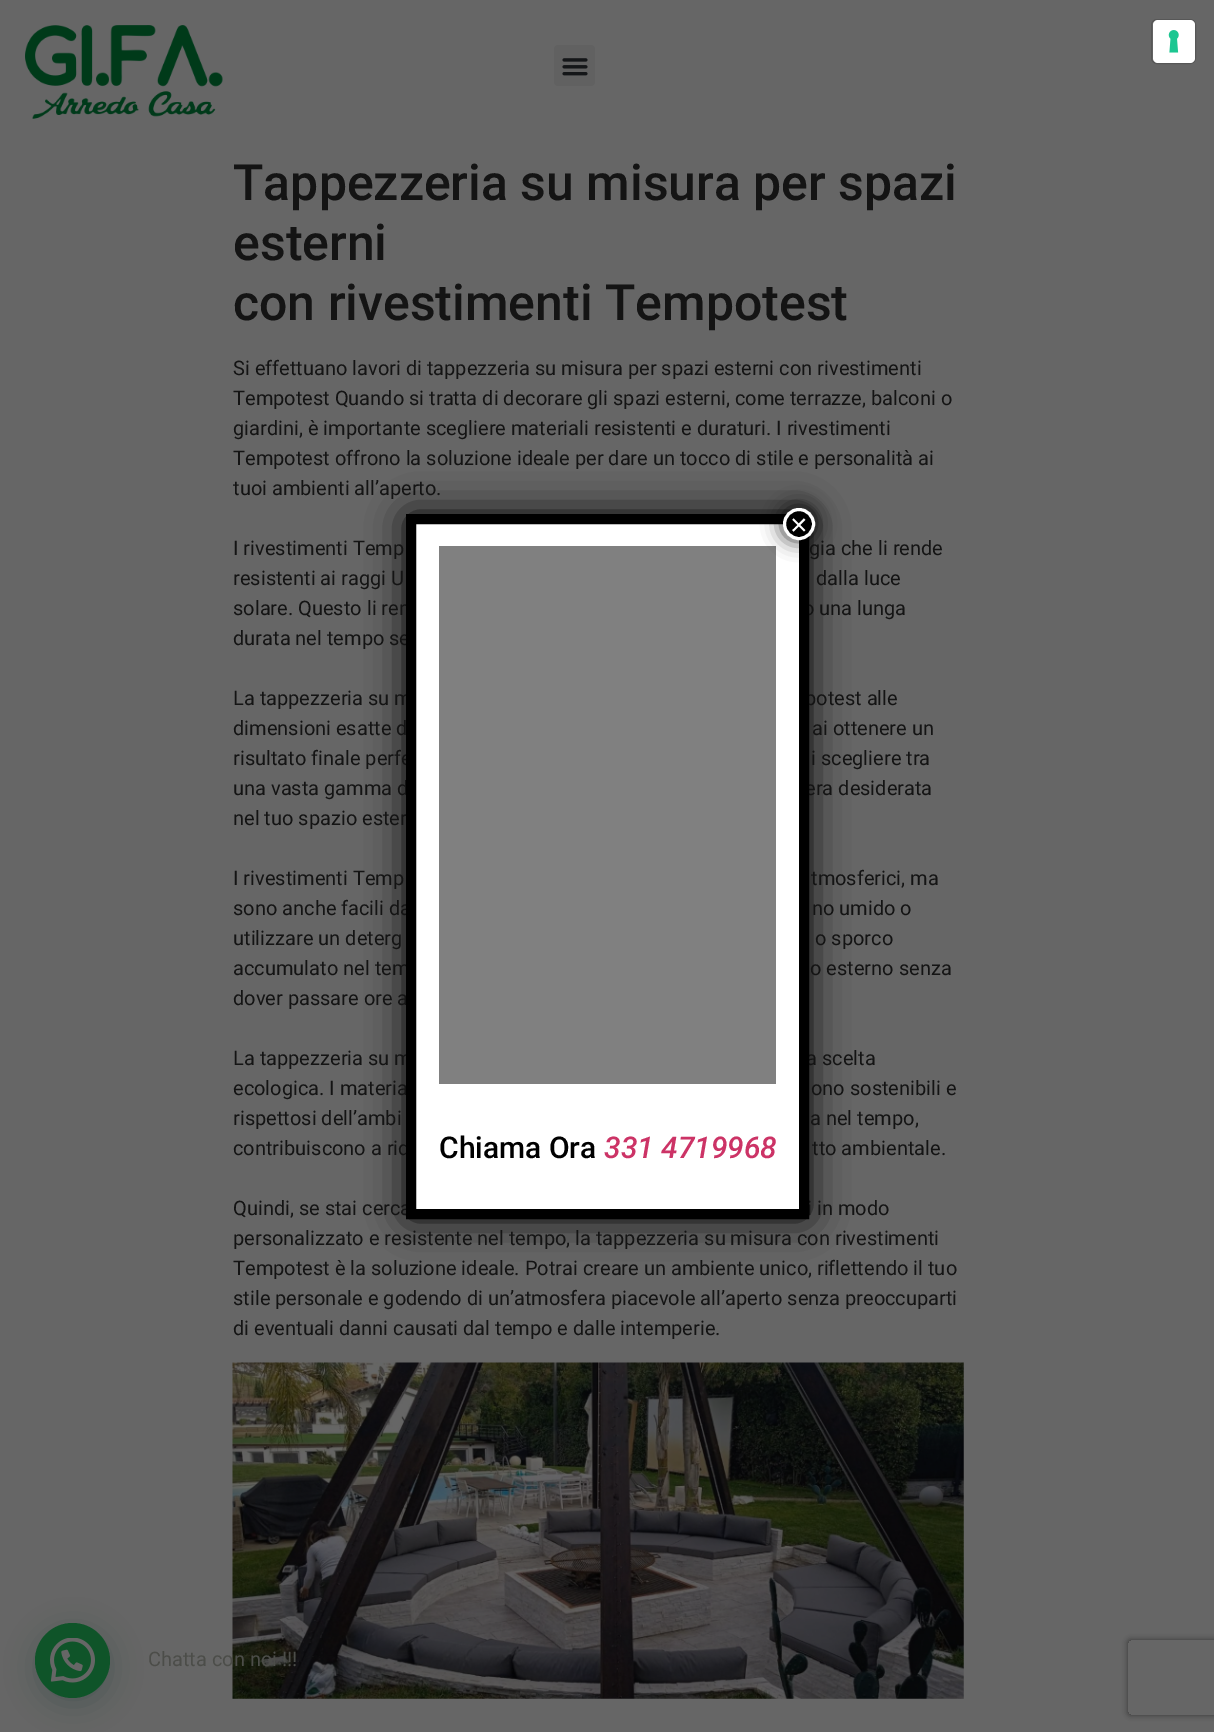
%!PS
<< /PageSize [1214 1732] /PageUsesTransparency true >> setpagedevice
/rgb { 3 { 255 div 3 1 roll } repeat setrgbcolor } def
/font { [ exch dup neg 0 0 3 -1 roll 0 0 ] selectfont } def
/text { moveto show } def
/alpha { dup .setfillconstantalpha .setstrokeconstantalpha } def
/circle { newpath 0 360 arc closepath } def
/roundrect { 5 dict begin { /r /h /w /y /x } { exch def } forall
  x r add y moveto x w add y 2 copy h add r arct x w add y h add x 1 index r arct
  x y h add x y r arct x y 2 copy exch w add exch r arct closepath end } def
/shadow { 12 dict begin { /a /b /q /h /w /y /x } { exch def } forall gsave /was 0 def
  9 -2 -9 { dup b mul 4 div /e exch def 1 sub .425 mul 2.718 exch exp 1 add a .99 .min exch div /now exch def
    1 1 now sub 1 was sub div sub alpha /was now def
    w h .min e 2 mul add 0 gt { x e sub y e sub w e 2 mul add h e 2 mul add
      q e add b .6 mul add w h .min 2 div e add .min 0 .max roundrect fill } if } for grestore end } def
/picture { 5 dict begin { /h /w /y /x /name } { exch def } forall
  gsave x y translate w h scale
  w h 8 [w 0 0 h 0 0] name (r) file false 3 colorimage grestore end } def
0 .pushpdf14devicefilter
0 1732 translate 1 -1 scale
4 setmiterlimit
102 102 102 rgb
0 0 1214 1732 rectfill
(img_01.rgb) 25 25 198 94 picture
97 97 97 rgb
554 45 41 41 4 roundrect fill
(img_02.rgb) 562 58 26 18 picture
87 87 87 rgb
1151.5 19.5 44 44 5.5 roundrect stroke
255 255 255 rgb
1153 20 42 43 5 roundrect fill
(img_03.rgb) 1168 30 11 23 picture
(img_04.rgb) 232 1362 732 337 picture
2 2 2 rgb
406 514 403 705 4 19 1 shadow
255 255 255 rgb
416 524 383 685 rectfill
3 38 34 rgb
36 1630 75 75 37.5 15 0.24 shadow
15 84 41 rgb
72.5 1660.5 37.5 circle fill
(img_05.rgb) 50 1638 45 45 picture
gsave
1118 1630 moveto 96 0 rlineto 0 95 rlineto -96 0 rlineto closepath 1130.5 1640 moveto 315 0 rlineto 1.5 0 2.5 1 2.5 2.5 rcurveto 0 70 rlineto 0 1.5 -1 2.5 -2.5 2.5 rcurveto -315 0 rlineto -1.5 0 -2.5 -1 -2.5 -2.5 rcurveto 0 -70 rlineto 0 -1.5 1 -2.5 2.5 -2.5 rcurveto closepath eoclip newpath
51 51 51 rgb
1128 1640 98 75 2.5 3 1 shadow
grestore
/Roboto-Medium 50 font
20 20 20 rgb
(Tappezzeria su misura per spazi) 233 200 text
(esterni) 233 260 text
(con rivestimenti Tempotest) 233 320 text
/Roboto-Regular 20 font
(Si effettuano lavori di tappezzeria su misura per spazi esterni con rivestimenti) 233 375 text
(Tempotest Quando si tratta di decorare gli spazi esterni, come terrazze, balconi o) 233 405 text
(giardini, è importante scegliere materiali resistenti e duraturi. I rivestimenti) 233 435 text
(Tempotest offrono la soluzione ideale per dare un tocco di stile e personalità ai) 233 465 text
(tuoi ambienti all’aperto.) 233 495 text
(I rivestimenti Temp) 233 555 text
(gia che li rende) 809 555 text
(resistenti ai raggi U) 233 585 text
(dalla luce) 816 585 text
(solare. Questo li ren) 233 615 text
(o una lunga) 803 615 text
(durata nel tempo se) 233 645 text
(La tappezzeria su m) 233 705 text
(potest alle) 805 705 text
(dimensioni esatte d) 233 735 text
(ai ottenere un) 812 735 text
(risultato finale perfe) 233 765 text
(i scegliere tra) 811 765 text
(una vasta gamma d) 233 795 text
(era desiderata) 805 795 text
(nel tuo spazio ester) 233 825 text
(I rivestimenti Temp) 233 885 text
(tmosferici, ma) 811 885 text
(sono anche facili da) 233 915 text
(no umido o) 812 915 text
(utilizzare un deterg) 233 945 text
(o sporco) 815 945 text
(accumulato nel tem) 233 975 text
(o esterno senza) 810 975 text
(dover passare ore a) 233 1005 text
(La tappezzeria su m) 233 1065 text
(a scelta) 806 1065 text
(ecologica. I materia) 233 1095 text
(ono sostenibili e) 811 1095 text
(rispettosi dell’ambi) 233 1125 text
(a nel tempo,) 810 1125 text
(contribuiscono a rid) 233 1155 text
(tto ambientale.) 812 1155 text
(Quindi, se stai cerca) 233 1215 text
(i in modo) 807 1215 text
(personalizzato e resistente nel tempo, la tappezzeria su misura con rivestimenti) 233 1245 text
(Tempotest è la soluzione ideale. Potrai creare un ambiente unico, riflettendo il tuo) 233 1275 text
(stile personale e godendo di un’atmosfera piacevole all’aperto senza preoccuparti) 233 1305 text
(di eventuali danni causati dal tempo e dalle intemperie.) 233 1335 text
0 0 0 rgb
10 setlinewidth
411 519 moveto 393 0 rlineto 0 695 rlineto -393 0 rlineto closepath stroke
128 128 128 rgb
439 546 337 538 rectfill
2 2 2 rgb
781 506 35 35 17.5 9.5 0.75 shadow
0 0 0 rgb
799 524 14.5 circle gsave fill grestore
255 255 255 rgb
3 setlinewidth
stroke
/LiberationSans-Regular 30 font
(×) 790 535 text
/Roboto-Medium 30 font
0 0 0 rgb
(Chiama Ora) 439 1158 text
/Roboto-MediumItalic 30 font
204 51 102 rgb
(331 4719968) 604 1158 text
/Roboto-Regular 20 font
76 77 73 rgb
(Chatta con noi !!!) 148 1666 text
.poppdf14devicefilter showpage
